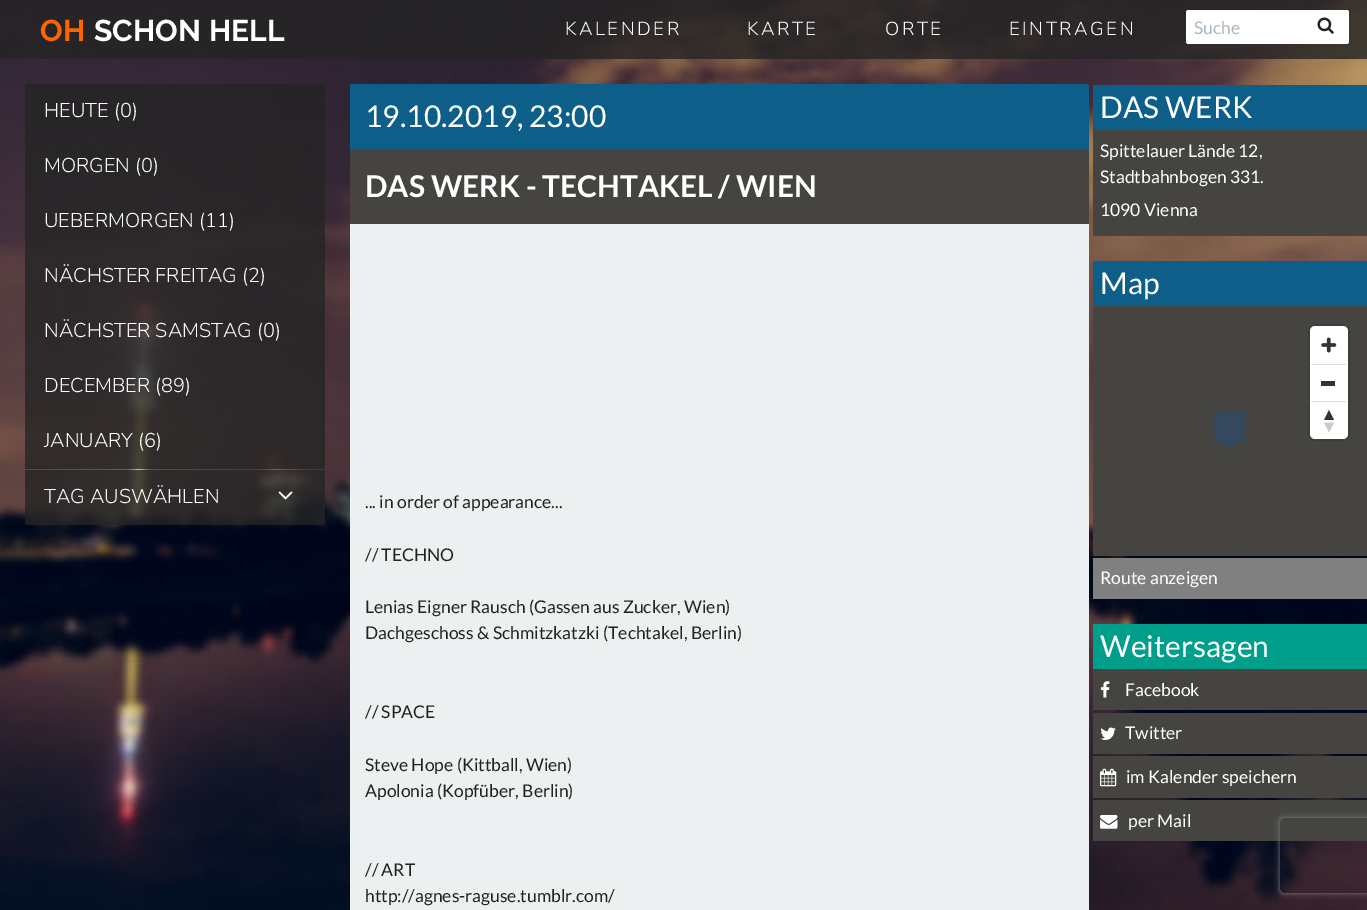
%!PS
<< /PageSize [1367 910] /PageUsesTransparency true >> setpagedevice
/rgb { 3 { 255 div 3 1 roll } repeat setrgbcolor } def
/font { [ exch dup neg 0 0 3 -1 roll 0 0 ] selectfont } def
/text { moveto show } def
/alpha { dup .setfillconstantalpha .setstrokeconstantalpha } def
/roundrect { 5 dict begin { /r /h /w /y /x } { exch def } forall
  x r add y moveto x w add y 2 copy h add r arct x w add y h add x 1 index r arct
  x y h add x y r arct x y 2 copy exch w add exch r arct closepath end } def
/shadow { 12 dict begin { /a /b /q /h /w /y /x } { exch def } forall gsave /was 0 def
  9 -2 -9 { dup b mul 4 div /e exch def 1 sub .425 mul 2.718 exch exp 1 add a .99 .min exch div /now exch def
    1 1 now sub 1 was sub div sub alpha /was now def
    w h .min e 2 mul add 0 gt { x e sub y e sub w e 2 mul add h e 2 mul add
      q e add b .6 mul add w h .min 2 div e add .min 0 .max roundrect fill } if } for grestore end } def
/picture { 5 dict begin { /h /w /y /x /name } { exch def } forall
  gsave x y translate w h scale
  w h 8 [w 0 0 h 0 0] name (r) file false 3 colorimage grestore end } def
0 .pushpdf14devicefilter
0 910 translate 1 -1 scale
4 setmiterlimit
255 255 255 rgb
0 0 1367 910 rectfill
(img_01.rgb) 0 0 1367 910 picture
0.8 alpha
36 36 36 rgb
0 0 1367 59 rectfill
1 alpha
255 255 255 rgb
1186 10 163 34 2.5 roundrect fill
(img_02.rgb) 1317 17 17 17 picture
0.8 alpha
36 36 36 rgb
27.5 84 moveto 295 0 rlineto 1.5 0 2.5 1 2.5 2.5 rcurveto 0 52.5 rlineto -300 0 rlineto 0 -52.5 rlineto 0 -1.5 1 -2.5 2.5 -2.5 rcurveto closepath fill
25 139 300 55 rectfill
25 194 300 55 rectfill
25 249 300 55 rectfill
25 304 300 55 rectfill
25 359 300 55 rectfill
25 414 300 55 rectfill
25 470 moveto 300 0 rlineto 0 52.5 rlineto 0 1.5 -1 2.5 -2.5 2.5 rcurveto -295 0 rlineto -1.5 0 -2.5 -1 -2.5 -2.5 rcurveto closepath fill
1 alpha
(img_03.rgb) 278 491 15 9 picture
13 94 137 rgb
352.5 84 moveto 734 0 rlineto 1.5 0 2.5 1 2.5 2.5 rcurveto 0 137.5 rlineto -739 0 rlineto 0 -137.5 rlineto 0 -1.5 1 -2.5 2.5 -2.5 rcurveto closepath fill
69 68 64 rgb
350 149 739 75 rectfill
236 240 241 rgb
350 224 739 686 rectfill
13 94 137 rgb
1093 85 274 45 rectfill
69 68 64 rgb
1093 130 274 106 rectfill
13 94 137 rgb
1093 261 274 45 rectfill
69 68 64 rgb
1093 306 274 250 rectfill
(img_04.rgb) 1214 411 32 39 picture
62 61 58 rgb
3 setlinewidth
1309.5 325.5 39 114 6.5 roundrect stroke
255 255 255 rgb
1310 326 38 113 5 roundrect fill
(img_05.rgb) 1321 337 16 16 picture
51 51 51 rgb
1321 381 14 5 rectfill
221 221 221 rgb
1311 364 35 1 rectfill
1311 401 35 1 rectfill
51 51 51 rgb
1324 420 moveto 5 -10 rlineto 5 10 rlineto closepath fill
204 204 204 rgb
1324 422.5 moveto 5 10 rlineto 5 -10 rlineto closepath fill
128 128 128 rgb
1093 558 274 41 rectfill
0 159 139 rgb
1093 624 274 45 rectfill
69 68 64 rgb
1093 669 274 41 rectfill
(img_06.rgb) 1100 681 10 17 picture
1093 713 274 41 rectfill
(img_07.rgb) 1100 727 16 13 picture
1093 756 274 42 rectfill
(img_08.rgb) 1100 768 17 19 picture
1093 800 274 41 rectfill
(img_09.rgb) 1100 815 18 14 picture
gsave
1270 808 moveto 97 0 rlineto 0 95 rlineto -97 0 rlineto closepath 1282.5 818 moveto 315 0 rlineto 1.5 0 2.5 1 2.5 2.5 rcurveto 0 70 rlineto 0 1.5 -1 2.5 -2.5 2.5 rcurveto -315 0 rlineto -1.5 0 -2.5 -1 -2.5 -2.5 rcurveto 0 -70 rlineto 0 -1.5 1 -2.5 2.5 -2.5 rcurveto closepath eoclip newpath
128 128 128 rgb
1280 818 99 75 2.5 3 1 shadow
grestore
/Raleway-Thin 30 font
255 100 0 rgb
(O) 40 41 text
63 41 moveto 9 0 (H) ashow
255 255 255 rgb
(SCHO) 94 41 text
178 41 moveto 9 0 (N) ashow
(HELL) 209 41 text
/NunitoSans-Light 18.75 font
565 35 moveto 2.5 0 (KALENDER) ashow
747 35 moveto 2.5 0 (KARTE) ashow
885 35 moveto 2.5 0 (ORTE) ashow
1009 35 moveto 2.5 0 (EINTRAGEN) ashow
/Lato-Regular 17.5 font
172 182 192 rgb
(Suche) 1194 34 text
/NunitoSans-Light 20 font
255 255 255 rgb
(HEUTE \(0\)) 44 117 text
(MORGEN \(0\)) 44 172 text
(UEBERMORGEN \(11\)) 44 227 text
(NÄCHSTER FREITAG \(2\)) 44 282 text
(NÄCHSTER SAMSTAG \(0\)) 44 337 text
(DECEMBER \(89\)) 44 392 text
(JANUARY \(6\)) 44 447 text
(TAG AUSWÄHLEN) 44 503 text
/Lato-Regular 30 font
(19.10.2019, 23:00) 365 127 text
/Lato-Bold 30 font
(DAS WERK - TECHTAKEL / WIEN) 365 197 text
/Lato-Regular 17.5 font
34 34 34 rgb
(... in order of appearance...) 365 508 text
(// TECHNO) 365 561 text
(Lenias Eigner Rausch \(Gassen aus Zucker, Wien\)) 365 613 text
(Dachgeschoss & Schmitzkatzki \(Techtakel, Berlin\)) 365 639 text
(// SPACE) 365 718 text
(Steve Hope \(Kittball, Wien\)) 365 771 text
(Apolonia \(Kopfüber, Berlin\)) 365 797 text
(// ART) 365 876 text
(http://agnes-raguse.tumblr.com/) 365 902 text
/Lato-Regular 30 font
255 255 255 rgb
(DAS WERK) 1100 118 text
/Lato-Regular 17.5 font
(Spittelauer Lände 12,) 1100 157 text
(Stadtbahnbogen 331.) 1100 183 text
(1090 Vienna) 1100 216 text
/Lato-Regular 30 font
(Map) 1100 294 text
/Lato-Regular 17.5 font
(Route anzeigen) 1100 584 text
/Lato-Regular 30 font
(Weitersagen) 1100 657 text
/Lato-Regular 17.5 font
(Facebook) 1125 696 text
(Twitter) 1125 739 text
(im Kalender speichern) 1126 783 text
(per Mail) 1128 827 text
.poppdf14devicefilter showpage
